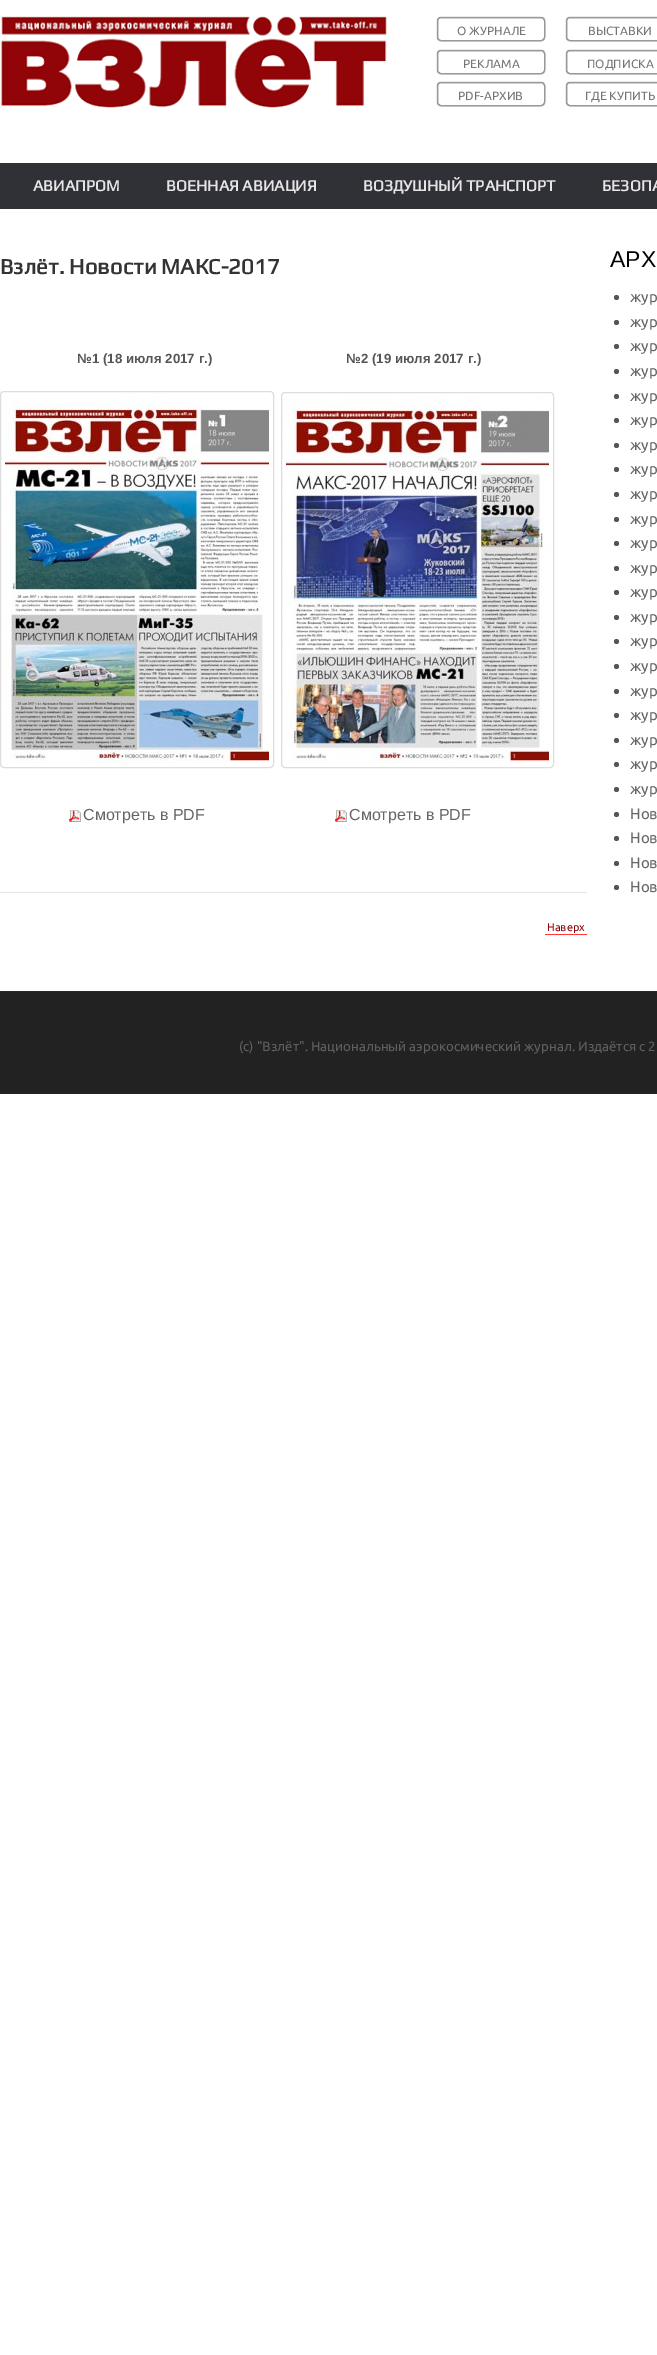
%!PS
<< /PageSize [657 2355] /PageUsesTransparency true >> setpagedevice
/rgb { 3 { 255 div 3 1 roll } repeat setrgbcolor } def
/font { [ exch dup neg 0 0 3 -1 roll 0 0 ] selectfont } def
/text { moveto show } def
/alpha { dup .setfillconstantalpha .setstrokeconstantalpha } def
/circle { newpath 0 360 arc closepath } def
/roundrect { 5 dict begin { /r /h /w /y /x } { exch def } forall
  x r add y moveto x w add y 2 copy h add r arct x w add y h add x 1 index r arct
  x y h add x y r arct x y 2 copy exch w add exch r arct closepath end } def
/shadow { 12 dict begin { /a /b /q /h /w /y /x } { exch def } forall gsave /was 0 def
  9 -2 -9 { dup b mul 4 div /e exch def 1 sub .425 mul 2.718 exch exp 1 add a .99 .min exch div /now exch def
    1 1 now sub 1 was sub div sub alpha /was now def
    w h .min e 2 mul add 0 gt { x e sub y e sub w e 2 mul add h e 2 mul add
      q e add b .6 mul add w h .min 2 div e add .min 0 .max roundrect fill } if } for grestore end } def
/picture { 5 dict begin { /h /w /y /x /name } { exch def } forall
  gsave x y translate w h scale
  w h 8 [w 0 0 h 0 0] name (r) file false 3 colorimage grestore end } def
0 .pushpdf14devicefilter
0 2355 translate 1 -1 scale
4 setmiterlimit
255 255 255 rgb
0 0 657 2355 rectfill
(img_01.rgb) 0 16 387 92 picture
0 0 0 rgb
437 17 108 24 4 0.5 0.3 shadow
255 255 255 rgb
437.5 17.5 107 23 3.5 roundrect gsave fill grestore
153 153 153 rgb
stroke
437.5 17.5 107 23 3.5 roundrect stroke
0 0 0 rgb
437 50 108 24 4 0.5 0.3 shadow
255 255 255 rgb
437.5 50.5 107 23 3.5 roundrect gsave fill grestore
153 153 153 rgb
stroke
437.5 50.5 107 23 3.5 roundrect stroke
0 0 0 rgb
437 82 108 24 4 0.5 0.3 shadow
255 255 255 rgb
437.5 82.5 107 23 3.5 roundrect gsave fill grestore
153 153 153 rgb
stroke
437.5 82.5 107 23 3.5 roundrect stroke
0 0 0 rgb
566 17 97 24 4 0.5 0.3 shadow
255 255 255 rgb
566.5 17.5 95 23 3.5 roundrect gsave fill grestore
153 153 153 rgb
stroke
566.5 17.5 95 23 3.5 roundrect stroke
0 0 0 rgb
566 50 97 24 4 0.5 0.3 shadow
255 255 255 rgb
566.5 50.5 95 23 3.5 roundrect gsave fill grestore
153 153 153 rgb
stroke
566.5 50.5 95 23 3.5 roundrect stroke
0 0 0 rgb
566 82 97 24 4 0.5 0.3 shadow
255 255 255 rgb
566.5 82.5 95 23 3.5 roundrect gsave fill grestore
153 153 153 rgb
stroke
566.5 82.5 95 23 3.5 roundrect stroke
48 48 55 rgb
0 163 657 46 rectfill
221 221 221 rgb
0.5 391.5 273 376 3.5 roundrect stroke
(img_02.rgb) 5 396 264 367 picture
281.5 392.5 272 375 3.5 roundrect stroke
(img_03.rgb) 286 397 263 366 picture
(img_04.rgb) 69 810 12 12 picture
(img_04.rgb) 335 810 12 12 picture
230 230 230 rgb
0 892 587 1 rectfill
255 57 57 rgb
545 934 42 1 rectfill
85 85 85 rgb
616.5 297.5 2.5 circle fill
616.5 322.5 2.5 circle fill
616.5 346.5 2.5 circle fill
616.5 371.5 2.5 circle fill
616.5 396.5 2.5 circle fill
616.5 420.5 2.5 circle fill
616.5 445.5 2.5 circle fill
616.5 469.5 2.5 circle fill
616.5 494.5 2.5 circle fill
616.5 519.5 2.5 circle fill
616.5 543.5 2.5 circle fill
616.5 568.5 2.5 circle fill
616.5 592.5 2.5 circle fill
616.5 617.5 2.5 circle fill
616.5 641.5 2.5 circle fill
616.5 666.5 2.5 circle fill
616.5 691.5 2.5 circle fill
616.5 715.5 2.5 circle fill
616.5 740.5 2.5 circle fill
616.5 764.5 2.5 circle fill
616.5 789.5 2.5 circle fill
616.5 814.5 2.5 circle fill
616.5 838.5 2.5 circle fill
616.5 863.5 2.5 circle fill
616.5 887.5 2.5 circle fill
34 34 34 rgb
0 992 657 102 rectfill
41 41 41 rgb
0 991 657 1 rectfill
/Ubuntu-Regular 12 font
117 117 117 rgb
(О ЖУРНАЛЕ) 457 35 text
(РЕКЛАМА) 463 68 text
(PDF-АРХИВ) 458 100 text
(ВЫСТАВКИ) 588 35 text
(ПОДПИСКА) 587 68 text
(ГДЕ КУПИТЬ) 585 100 text
/Play-Bold 16 font
229 229 229 rgb
(АВИАПРОМ) 33 191 text
(ВОЕННАЯ АВИАЦИЯ) 166 191 text
(ВОЗДУШНЫЙ ТРАНСПОРТ) 363 191 text
(БЕЗОПА) 602 191 text
/Play-Bold 22 font
51 51 51 rgb
(Взлёт. Новости МАКС-2017) 0 274 text
/LiberationSans-Bold 13.3 font
85 85 85 rgb
(№1 \(18 июля 2017 г.\)) 77 363 text
(№2 \(19 июля 2017 г.\)) 346 363 text
/LiberationSans-Regular 16 font
102 102 102 rgb
(Смотреть в PDF) 83 820 text
(Смотреть в PDF) 349 820 text
/Ubuntu-Regular 11 font
145 4 7 rgb
(Наверх) 547 931 text
/LiberationSans-Regular 23 font
0 0 0 rgb
(АРХ) 610 267 text
/Ubuntu-Regular 15 font
102 102 102 rgb
(жур) 630 302 text
(жур) 630 327 text
(жур) 630 351 text
(жур) 630 376 text
(жур) 630 401 text
(жур) 630 425 text
(жур) 630 450 text
(жур) 630 474 text
(жур) 630 499 text
(жур) 630 524 text
(жур) 630 548 text
(жур) 630 573 text
(жур) 630 597 text
(жур) 630 622 text
(жур) 630 646 text
(жур) 630 671 text
(жур) 630 696 text
(жур) 630 720 text
(жур) 630 745 text
(жур) 630 769 text
(жур) 630 794 text
(Нов) 630 819 text
(Нов) 630 843 text
(Нов) 630 868 text
(Нов) 630 892 text
/Ubuntu-Regular 13.3 font
95 95 95 rgb
(\(с\) "Взлёт". Национальный аэрокосмический журнал. Издаётся с 2) 239 1051 text
.poppdf14devicefilter showpage
